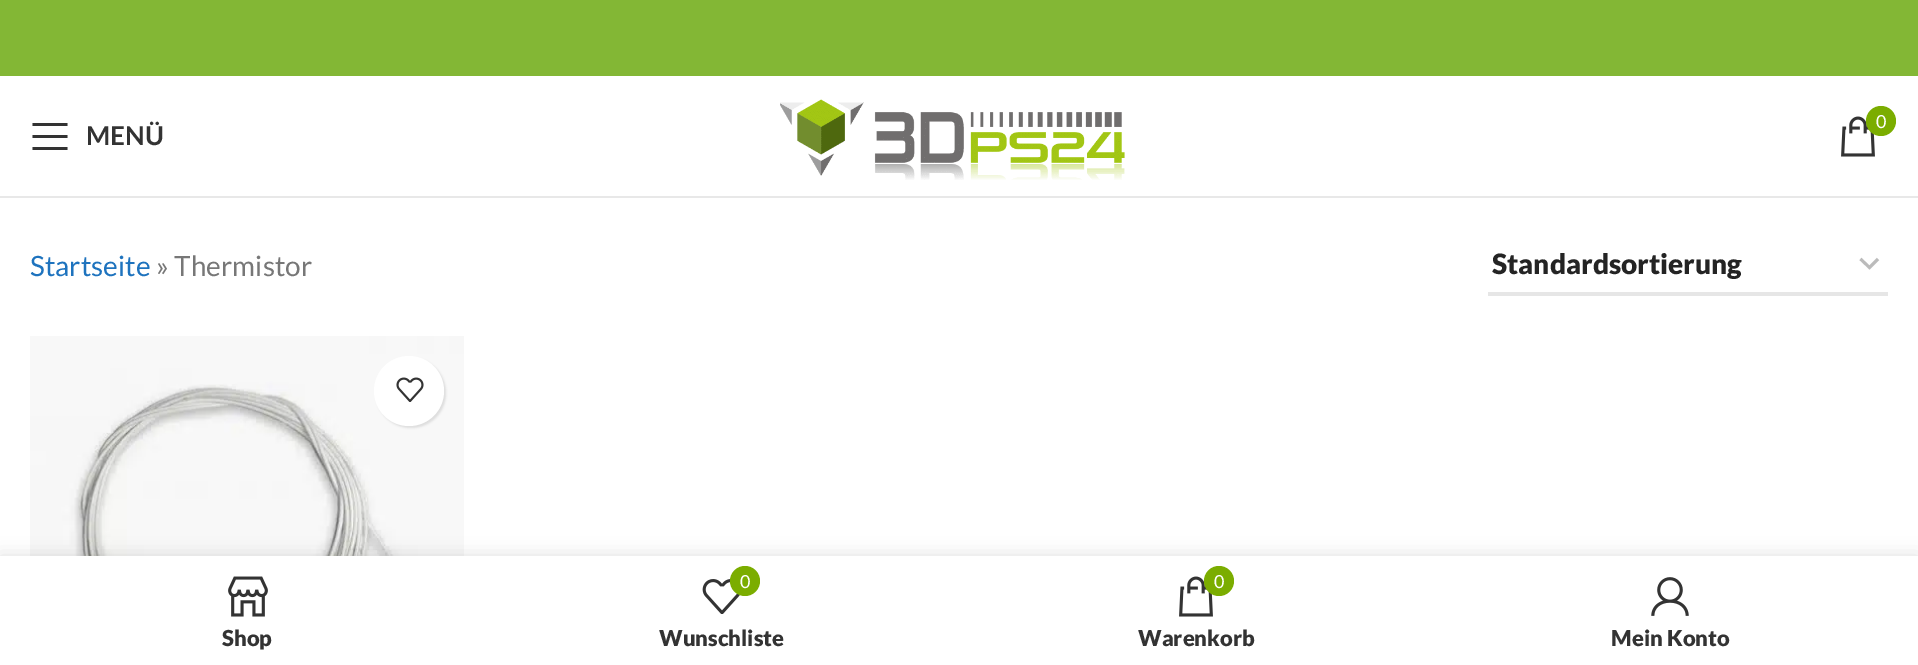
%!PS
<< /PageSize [1918 665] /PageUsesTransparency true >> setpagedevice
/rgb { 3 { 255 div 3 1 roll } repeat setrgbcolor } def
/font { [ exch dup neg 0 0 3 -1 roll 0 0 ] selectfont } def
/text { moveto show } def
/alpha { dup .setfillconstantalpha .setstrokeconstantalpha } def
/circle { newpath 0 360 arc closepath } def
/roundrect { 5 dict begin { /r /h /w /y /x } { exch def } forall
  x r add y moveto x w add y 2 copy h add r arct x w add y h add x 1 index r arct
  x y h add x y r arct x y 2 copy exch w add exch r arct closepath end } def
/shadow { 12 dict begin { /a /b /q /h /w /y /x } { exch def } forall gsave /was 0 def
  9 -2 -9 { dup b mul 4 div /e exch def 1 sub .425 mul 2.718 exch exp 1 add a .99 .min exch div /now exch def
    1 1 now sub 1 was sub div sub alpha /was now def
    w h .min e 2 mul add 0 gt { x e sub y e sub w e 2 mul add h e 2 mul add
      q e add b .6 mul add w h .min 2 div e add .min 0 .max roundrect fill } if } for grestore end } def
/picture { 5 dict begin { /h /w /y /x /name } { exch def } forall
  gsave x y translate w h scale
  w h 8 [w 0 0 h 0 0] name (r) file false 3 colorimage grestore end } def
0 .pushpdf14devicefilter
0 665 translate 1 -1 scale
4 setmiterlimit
255 255 255 rgb
0 0 1918 665 rectfill
131 183 53 rgb
0 0 1918 76 rectfill
232 232 232 rgb
0 196 1918 2 rectfill
51 51 51 rgb
32.5 126 moveto 35 0 rlineto 0 -3 rlineto -35 0 rlineto closepath 32.5 138 moveto 35 0 rlineto 0 -3 rlineto -35 0 rlineto closepath 32.5 150 moveto 35 0 rlineto 0 -3 rlineto -35 0 rlineto closepath fill
(img_01.rgb) 780 99 345 81 picture
(img_02.rgb) 1841 116 34 41 picture
123 173 0 rgb
1881 121 15 circle fill
187 187 187 rgb
2.9 setlinewidth
1860.5 259 moveto 9 8.5 rlineto 8.5 -8.5 rlineto stroke
230 230 230 rgb
1488 292 400 4 rectfill
(img_03.rgb) 30 336 434 220 picture
0 0 0 rgb
376 358 70 70 35 1 0.1 shadow
255 255 255 rgb
409 391 35 circle fill
(img_04.rgb) 396 377 28 25 picture
0 0 0 rgb
0 556 1918 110 0 9 0.12 shadow
255 255 255 rgb
0 556 1918 109 rectfill
(img_05.rgb) 228 576 40 41 picture
(img_06.rgb) 702 579 38 35 picture
123 173 0 rgb
745 581 15 circle fill
(img_02.rgb) 1179 576 34 41 picture
1219 581 15 circle fill
(img_07.rgb) 1651 577 38 39 picture
/Lato-Bold 26 font
51 51 51 rgb
(MENÜ) 86 145 text
/Lato-Regular 18 font
255 255 255 rgb
(0) 1876 128 text
/Lato-Regular 28 font
30 115 190 rgb
(Startseite) 30 276 text
119 119 119 rgb
(» Thermistor) 156 276 text
/Lato-Black 28 font
36 36 36 rgb
(Standardsortierung) 1492 274 text
/Lato-Black 22 font
51 51 51 rgb
(Shop) 222 646 text
/Lato-Regular 18 font
255 255 255 rgb
(0) 740 588 text
/Lato-Black 22 font
51 51 51 rgb
(Wunschliste) 659 646 text
/Lato-Regular 18 font
255 255 255 rgb
(0) 1214 588 text
/Lato-Black 22 font
51 51 51 rgb
(Warenkorb) 1138 646 text
(Mein Konto) 1611 646 text
.poppdf14devicefilter showpage
